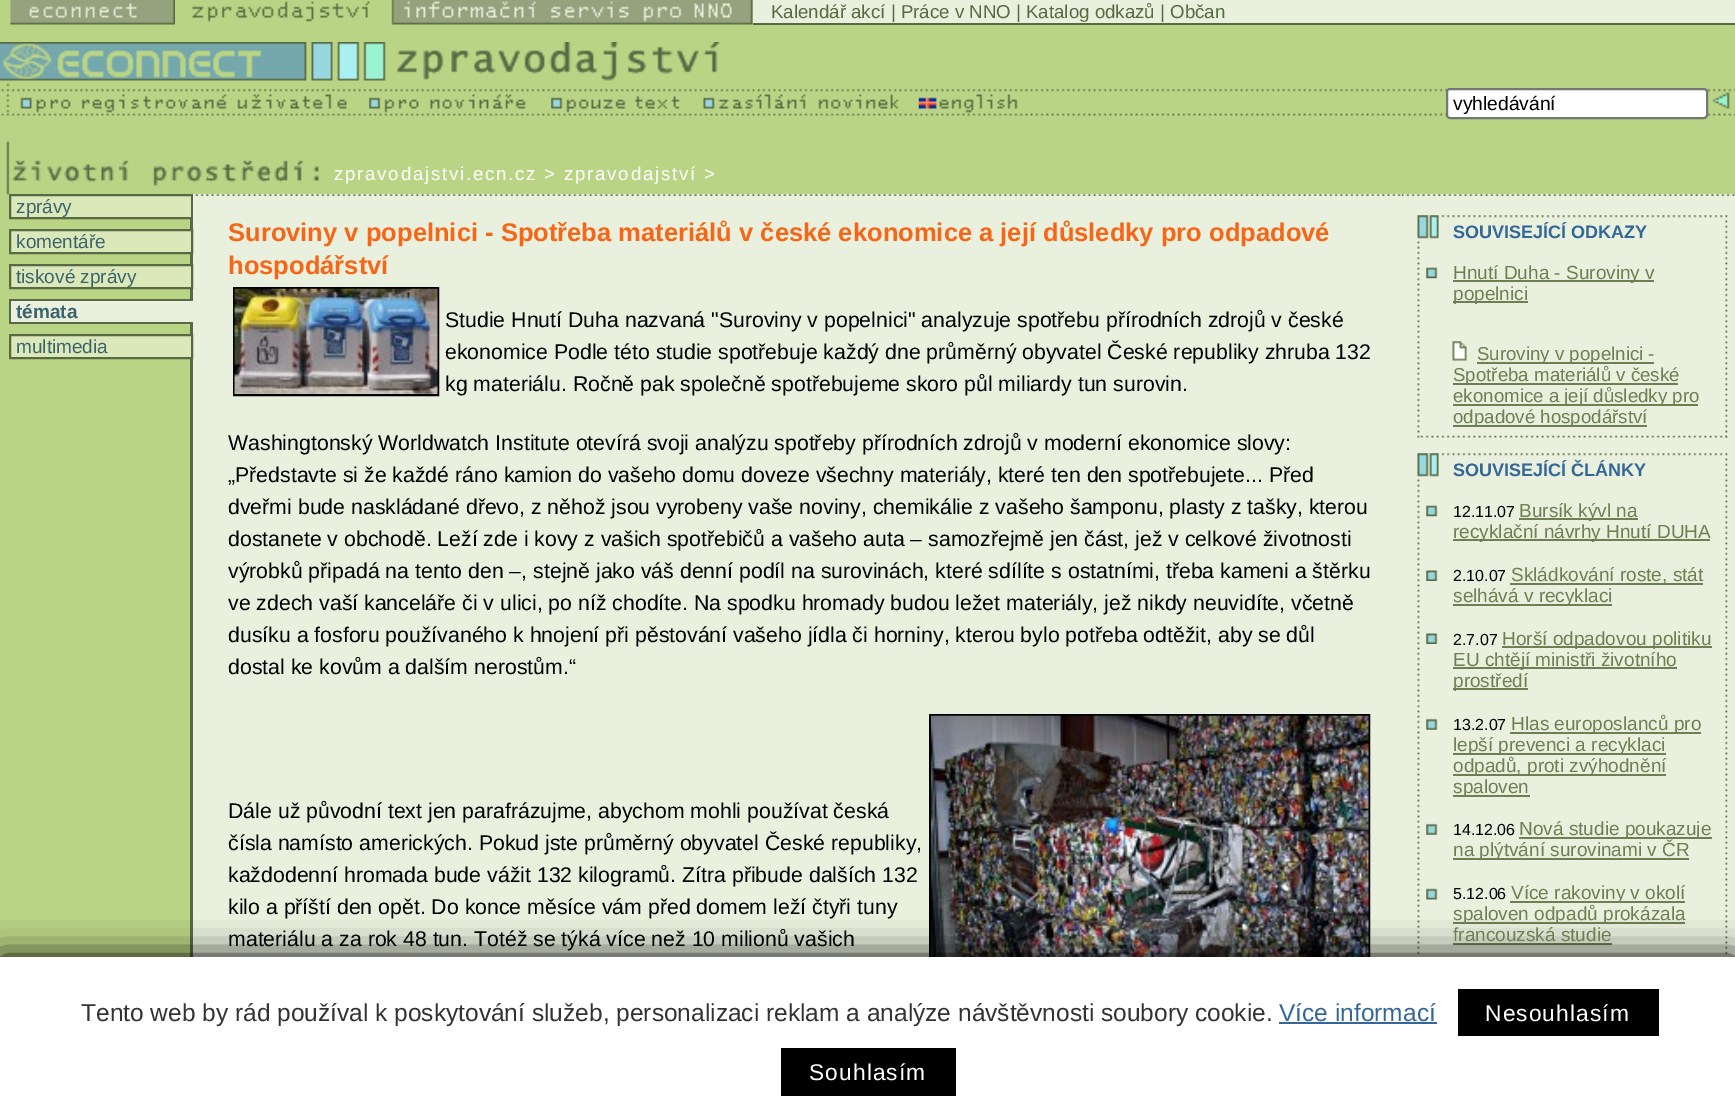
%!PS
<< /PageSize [1735 1112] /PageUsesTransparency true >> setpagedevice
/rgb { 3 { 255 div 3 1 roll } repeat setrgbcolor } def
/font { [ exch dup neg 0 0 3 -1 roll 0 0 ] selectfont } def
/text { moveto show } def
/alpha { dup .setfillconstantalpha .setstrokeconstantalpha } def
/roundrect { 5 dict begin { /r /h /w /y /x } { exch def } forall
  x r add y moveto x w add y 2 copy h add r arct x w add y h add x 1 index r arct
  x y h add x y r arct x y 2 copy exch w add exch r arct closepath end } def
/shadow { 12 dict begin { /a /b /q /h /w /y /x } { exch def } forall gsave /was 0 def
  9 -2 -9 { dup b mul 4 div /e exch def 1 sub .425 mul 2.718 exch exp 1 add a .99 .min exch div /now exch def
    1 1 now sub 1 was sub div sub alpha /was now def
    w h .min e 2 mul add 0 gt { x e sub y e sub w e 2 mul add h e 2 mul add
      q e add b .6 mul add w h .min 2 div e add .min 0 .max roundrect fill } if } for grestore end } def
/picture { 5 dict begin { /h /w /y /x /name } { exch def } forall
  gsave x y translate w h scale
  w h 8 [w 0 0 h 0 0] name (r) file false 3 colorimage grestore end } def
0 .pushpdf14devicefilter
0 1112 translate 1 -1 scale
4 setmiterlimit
185 212 132 rgb
0 0 1735 1112 rectfill
(img_01.rgb) 10 0 165 25 picture
(img_02.rgb) 192 0 202 25 picture
(img_03.rgb) 393 0 360 25 picture
233 240 221 rgb
753 0 982 23 rectfill
88 106 68 rgb
753 23 982 2 rectfill
(img_04.rgb) 0 42 386 45 picture
(img_05.rgb) 396 42 324 39 picture
(img_06.rgb) 1 88 366 28 picture
(img_07.rgb) 369 88 181 28 picture
(img_08.rgb) 551 88 152 28 picture
(img_09.rgb) 703 88 215 28 picture
(img_11.rgb) 1027 88 708 28 picture
(img_10.rgb) 918 88 110 28 picture
255 255 255 rgb
1447 89 260 29 3 roundrect gsave fill grestore
118 118 118 rgb
2 setlinewidth
stroke
(img_12.rgb) 1712 92 18 17 picture
219 233 186 rgb
10 195 moveto 182 0 rlineto 0 23 rlineto -182 0 rlineto closepath gsave fill grestore
88 106 68 rgb
stroke
233 240 221 rgb
193 194 1542 763 rectfill
(img_14.rgb) 195 194 1206 2 picture
(img_13.rgb) 6 141 313 54 picture
88 106 68 rgb
190 219 3 738 rectfill
219 233 186 rgb
10 230 moveto 182 0 rlineto 0 23 rlineto -182 0 rlineto closepath gsave fill grestore
88 106 68 rgb
stroke
219 233 186 rgb
10 265 moveto 182 0 rlineto 0 23 rlineto -182 0 rlineto closepath gsave fill grestore
88 106 68 rgb
stroke
233 240 221 rgb
11 301 182 21 rectfill
88 106 68 rgb
9 299 184 2 rectfill
9 322 184 2 rectfill
9 299 2 25 rectfill
219 233 186 rgb
10 335 moveto 182 0 rlineto 0 23 rlineto -182 0 rlineto closepath gsave fill grestore
88 106 68 rgb
stroke
0 0 0 rgb
234 288 204 107 rectstroke
(img_15.rgb) 234 288 204 106 picture
930 715 439 329 rectstroke
(img_16.rgb) 931 715 438 242 picture
(img_17.rgb) 1401 194 334 2 picture
(img_18.rgb) 1417 215 311 223 picture
(img_19.rgb) 1417 435 311 3 picture
(img_20.rgb) 1426 267 12 12 picture
109 127 83 rgb
1453 280 201 2 rectfill
1453 301 75 2 rectfill
(img_21.rgb) 1452 341 15 20 picture
1477 362 177 2 rectfill
1453 383 225 2 rectfill
1453 404 245 2 rectfill
1453 425 194 2 rectfill
(img_22.rgb) 1417 453 311 502 picture
(img_20.rgb) 1426 505 12 12 picture
1519 518 119 2 rectfill
1453 539 257 2 rectfill
(img_23.rgb) 1426 570 12 11 picture
1510 583 193 2 rectfill
1453 604 159 2 rectfill
(img_23.rgb) 1426 633 12 11 picture
1502 646 210 2 rectfill
1453 667 224 2 rectfill
1453 688 75 2 rectfill
(img_24.rgb) 1426 718 12 12 picture
1510 732 191 2 rectfill
1453 753 213 2 rectfill
1453 774 213 2 rectfill
1453 795 77 2 rectfill
(img_24.rgb) 1426 823 12 12 picture
1519 837 193 2 rectfill
1453 858 236 2 rectfill
(img_25.rgb) 1426 888 12 12 picture
1510 901 175 2 rectfill
1453 922 232 2 rectfill
1453 943 159 2 rectfill
0 0 0 rgb
0 957 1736 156 0 16.5 1 shadow
255 255 255 rgb
0 957 1735 155 rectfill
51 102 153 rgb
1279 1022 158 2 rectfill
0 0 0 rgb
1458 989 201 47 rectfill
781 1048 175 48 rectfill
/LiberationSans-Regular 18.7 font
88 106 68 rgb
(Kalendář akcí | Práce v NNO | Katalog odkazů | Občan) 771 18 text
/LiberationSans-Regular 19.25 font
0 0 0 rgb
(vyhledávání) 1453 110 text
/LiberationSans-Regular 18.7 font
255 255 255 rgb
334 180 moveto 1.75 0 (zpravodajstvi.ecn.cz > zpravodajství >) ashow
/LiberationSans-Regular 19 font
60 99 108 rgb
(zprávy) 16 213 text
(komentáře) 16 248 text
(tiskové zprávy) 16 283 text
/LiberationSans-Bold 19 font
(témata) 16 318 text
/LiberationSans-Regular 19 font
(multimedia) 16 353 text
/LiberationSans-Bold 25.55 font
247 102 23 rgb
(Suroviny v popelnici - Spotřeba materiálů v české ekonomice a její důsledky pro odpadové) 228 241 text
(hospodářství) 228 274 text
/LiberationSans-Regular 21.28 font
0 0 0 rgb
(Studie Hnutí Duha nazvaná "Suroviny v popelnici" analyzuje spotřebu přírodních zdrojů v české) 445 327 text
(ekonomice Podle této studie spotřebuje každý dne průměrný obyvatel České republiky zhruba 132) 445 359 text
(kg materiálu. Ročně pak společně spotřebujeme skoro půl miliardy tun surovin.) 445 391 text
(Washingtonský Worldwatch Institute otevírá svoji analýzu spotřeby přírodních zdrojů v moderní ekonomice slovy:) 228 450 text
(„Představte si že každé ráno kamion do vašeho domu doveze všechny materiály, které ten den spotřebujete... Před) 228 482 text
(dveřmi bude naskládané dřevo, z něhož jsou vyrobeny vaše noviny, chemikálie z vašeho šamponu, plasty z tašky, kterou) 228 514 text
(dostanete v obchodě. Leží zde i kovy z vašich spotřebičů a vašeho auta – samozřejmě jen část, jež v celkové životnosti) 228 546 text
(výrobků připadá na tento den –, stejně jako váš denní podíl na surovinách, které sdílíte s ostatními, třeba kameni a štěrku) 228 578 text
(ve zdech vaší kanceláře či v ulici, po níž chodíte. Na spodku hromady budou ležet materiály, jež nikdy neuvidíte, včetně) 228 610 text
(dusíku a fosforu používaného k hnojení při pěstování vašeho jídla či horniny, kterou bylo potřeba odtěžit, aby se důl) 228 642 text
(dostal ke kovům a dalším nerostům.“) 228 674 text
(Dále už původní text jen parafrázujme, abychom mohli používat česká) 228 818 text
(čísla namísto amerických. Pokud jste průměrný obyvatel České republiky,) 228 850 text
(každodenní hromada bude vážit 132 kilogramů. Zítra přibude dalších 132) 228 882 text
(kilo a příští den opět. Do konce měsíce vám před domem leží čtyři tuny) 228 914 text
(materiálu a za rok 48 tun. Totéž se týká více než 10 milionů vašich) 228 946 text
/LiberationSans-Bold 18 font
51 102 153 rgb
(SOUVISEJÍCÍ ODKAZY) 1453 238 text
/LiberationSans-Regular 19 font
109 127 83 rgb
(Hnutí Duha - Suroviny v) 1453 279 text
(popelnici) 1453 300 text
/LiberationSans-Regular 18.7 font
(Suroviny v popelnici -) 1477 360 text
(Spotřeba materiálů v české) 1453 381 text
(ekonomice a její důsledky pro) 1453 402 text
(odpadové hospodářství) 1453 423 text
/LiberationSans-Bold 18 font
51 102 153 rgb
(SOUVISEJÍCÍ ČLÁNKY) 1453 476 text
/LiberationSans-Regular 16 font
0 0 0 rgb
(12.11.07) 1453 517 text
/LiberationSans-Regular 19 font
109 127 83 rgb
(Bursík kývl na) 1519 517 text
(recyklační návrhy Hnutí DUHA) 1453 538 text
/LiberationSans-Regular 16 font
0 0 0 rgb
(2.10.07) 1453 581 text
/LiberationSans-Regular 19 font
109 127 83 rgb
(Skládkování roste, stát) 1511 581 text
(selhává v recyklaci) 1453 602 text
/LiberationSans-Regular 16 font
0 0 0 rgb
(2.7.07) 1453 645 text
/LiberationSans-Regular 19 font
109 127 83 rgb
(Horší odpadovou politiku) 1502 645 text
(EU chtějí ministři životního) 1453 666 text
(prostředí) 1453 687 text
/LiberationSans-Regular 16 font
0 0 0 rgb
(13.2.07) 1453 730 text
/LiberationSans-Regular 19 font
109 127 83 rgb
(Hlas europoslanců pro) 1511 730 text
(lepší prevenci a recyklaci) 1453 751 text
(odpadů, proti zvýhodnění) 1453 772 text
(spaloven) 1453 793 text
/LiberationSans-Regular 16 font
0 0 0 rgb
(14.12.06) 1453 835 text
/LiberationSans-Regular 19 font
109 127 83 rgb
(Nová studie poukazuje) 1519 835 text
(na plýtvání surovinami v ČR) 1453 856 text
/LiberationSans-Regular 16 font
0 0 0 rgb
(5.12.06) 1453 899 text
/LiberationSans-Regular 19 font
109 127 83 rgb
(Více rakoviny v okolí) 1511 899 text
(spaloven odpadů prokázala) 1453 920 text
(francouzská studie) 1453 941 text
/LiberationSans-Regular 24.5 font
50 50 50 rgb
(Tento web by rád používal k poskytování služeb, personalizaci reklam a analýze návštěvnosti soubory cookie.) 81 1021 text
51 102 153 rgb
(Více informací) 1279 1021 text
/LiberationSans-Regular 22.75 font
255 255 255 rgb
1485 1021 moveto 1.1 0 (Nesouhlasím) ashow
809 1080 moveto 1.1 0 (Souhlasím) ashow
.poppdf14devicefilter showpage
